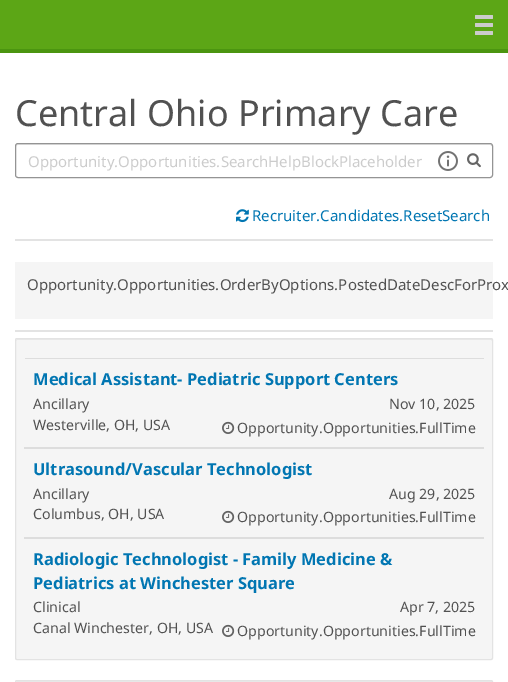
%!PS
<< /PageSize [508 682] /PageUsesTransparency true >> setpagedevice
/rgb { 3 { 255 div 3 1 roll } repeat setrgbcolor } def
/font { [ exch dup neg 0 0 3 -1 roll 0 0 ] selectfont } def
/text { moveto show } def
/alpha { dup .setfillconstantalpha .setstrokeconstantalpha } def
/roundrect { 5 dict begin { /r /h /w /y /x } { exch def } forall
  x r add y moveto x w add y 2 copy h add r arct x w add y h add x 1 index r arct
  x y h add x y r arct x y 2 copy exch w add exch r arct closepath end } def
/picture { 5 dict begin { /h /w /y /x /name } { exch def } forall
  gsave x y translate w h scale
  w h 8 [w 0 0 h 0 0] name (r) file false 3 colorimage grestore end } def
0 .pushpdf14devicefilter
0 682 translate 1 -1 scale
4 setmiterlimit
255 255 255 rgb
0 0 508 682 rectfill
92 166 22 rgb
0 0 508 49 rectfill
75 149 16 rgb
0 49 508 4 rectfill
204 204 204 rgb
475 15 18 4 1 roundrect fill
475 23 18 4 1 roundrect fill
475 31 18 4 1 roundrect fill
236 236 236 rgb
18 145 moveto 472 0 rlineto 1 0 2 1 2 2 rcurveto 0 -1 rlineto 0 -1 -1 -2 -2 -2 rcurveto -472 0 rlineto -1 0 -2 1 -2 2 rcurveto 0 1 rlineto 0 -1 1 -2 2 -2 rcurveto closepath fill
0.42 alpha
0 0 0 rgb
15.5 143.5 477 34 2.5 roundrect stroke
1 alpha
(img_01.rgb) 438 151 20 20 picture
(img_02.rgb) 467 153 14 15 picture
(img_03.rgb) 236 209 13 14 picture
227 227 227 rgb
15 239 478 2 rectfill
15 330 478 2 rectfill
245 245 245 rgb
15 262 478 57 rectfill
15 338 478 322 2 roundrect fill
233 233 233 rgb
17 340 moveto 474 0 rlineto 1 1 rlineto 0 -1 0 -2 -1 -2 rcurveto -474 0 rlineto -1 1 rlineto 0 1 rlineto closepath fill
227 227 227 rgb
15.5 338.5 477 321 1.5 roundrect stroke
221 221 221 rgb
25 358 459 1 rectfill
(img_04.rgb) 222 421 13 13 picture
24 447 460 2 rectfill
(img_04.rgb) 222 510 13 13 picture
24 537 460 2 rectfill
(img_04.rgb) 222 624 13 13 picture
245 245 245 rgb
15 680 478 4 2 roundrect fill
233 233 233 rgb
17 682 moveto 474 0 rlineto 1 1 rlineto 0 -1 0 -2 -1 -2 rcurveto -474 0 rlineto -1 1 rlineto 0 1 rlineto closepath fill
227 227 227 rgb
15.5 680.5 477 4 1.5 roundrect stroke
/NotoSans-Regular 36 font
81 81 81 rgb
(Central Ohio Primary Care) 15 126 text
/NotoSans-Regular 15 font
204 204 204 rgb
(Opportunity.Opportunities.SearchHelpBlockPlaceholder) 28 167 text
1 118 178 rgb
(Recruiter.Candidates.ResetSearch) 252 221 text
81 81 81 rgb
(Opportunity.Opportunities.OrderByOptions.PostedDateDescForProx) 27 290 text
/NotoSans-Bold 16.5 font
1 118 178 rgb
(Medical Assistant- Pediatric Support Centers) 33 385 text
/NotoSans-Regular 14.2 font
81 81 81 rgb
(Ancillary) 33 409 text
(Westerville, OH, USA) 33 430 text
(Nov 10, 2025) 389 409 text
(Opportunity.Opportunities.FullTime) 237 433 text
/NotoSans-Bold 16.5 font
1 118 178 rgb
(Ultrasound/Vascular Technologist) 33 475 text
/NotoSans-Regular 14.2 font
81 81 81 rgb
(Ancillary) 33 499 text
(Columbus, OH, USA) 33 519 text
(Aug 29, 2025) 389 499 text
(Opportunity.Opportunities.FullTime) 237 522 text
/NotoSans-Bold 16.5 font
1 118 178 rgb
(Radiologic Technologist - Family Medicine &) 33 565 text
(Pediatrics at Winchester Square) 33 589 text
/NotoSans-Regular 14.2 font
81 81 81 rgb
(Clinical) 33 612 text
(Canal Winchester, OH, USA) 33 633 text
(Apr 7, 2025) 400 612 text
(Opportunity.Opportunities.FullTime) 237 636 text
.poppdf14devicefilter showpage
